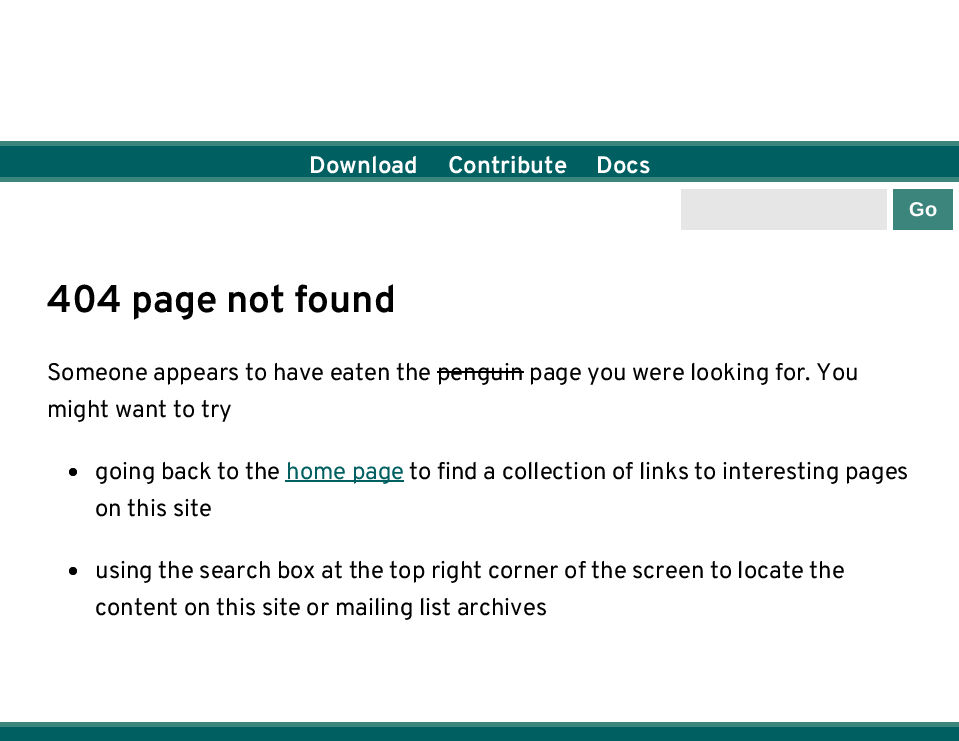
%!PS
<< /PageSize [959 741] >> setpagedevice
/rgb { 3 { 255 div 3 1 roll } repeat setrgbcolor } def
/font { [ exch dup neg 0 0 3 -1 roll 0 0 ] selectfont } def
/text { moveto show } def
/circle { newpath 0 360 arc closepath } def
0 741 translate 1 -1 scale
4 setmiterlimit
255 255 255 rgb
0 0 959 741 rectfill
0 95 97 rgb
0 146 959 31 rectfill
60 133 124 rgb
0 141 959 5 rectfill
0 177 959 5 rectfill
230 230 230 rgb
681 189 206 41 rectfill
60 133 124 rgb
893 189 60 41 rectfill
0 0 0 rgb
437 371 87 2 rectfill
73 472 4 circle fill
0 95 97 rgb
285 480 119 2 rectfill
0 0 0 rgb
73 571 4 circle fill
0 95 97 rgb
0 727 959 14 rectfill
60 133 124 rgb
0 722 959 5 rectfill
/Overpass-Bold 24 font
255 255 255 rgb
(Download) 309 173 text
(Contribute) 448 173 text
(Docs) 596 173 text
/LiberationSans-Bold 20 font
(Go) 909 216 text
/Overpass-Bold 38.5 font
0 0 0 rgb
(404 page not found) 47 312 text
/Overpass-Regular 24 font
(Someone appears to have eaten the penguin page you were looking for. You) 47 380 text
(might want to try) 47 417 text
(going back to the) 95 479 text
0 95 97 rgb
(home page) 286 479 text
0 0 0 rgb
(to find a collection of links to interesting pages) 409 479 text
(on this site) 95 516 text
(using the search box at the top right corner of the screen to locate the) 95 578 text
(content on this site or mailing list archives) 95 615 text
showpage
